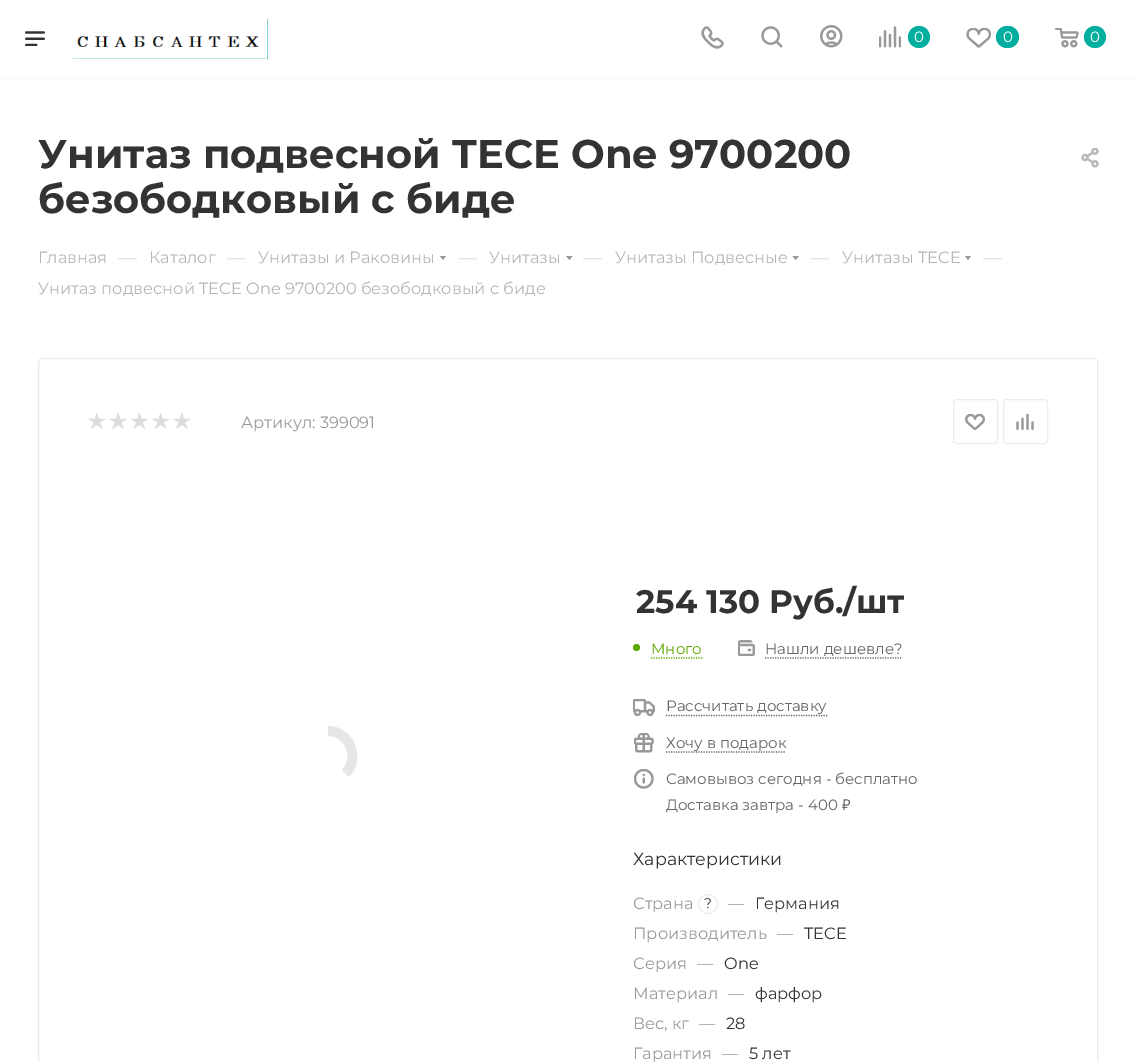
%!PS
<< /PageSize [1135 1062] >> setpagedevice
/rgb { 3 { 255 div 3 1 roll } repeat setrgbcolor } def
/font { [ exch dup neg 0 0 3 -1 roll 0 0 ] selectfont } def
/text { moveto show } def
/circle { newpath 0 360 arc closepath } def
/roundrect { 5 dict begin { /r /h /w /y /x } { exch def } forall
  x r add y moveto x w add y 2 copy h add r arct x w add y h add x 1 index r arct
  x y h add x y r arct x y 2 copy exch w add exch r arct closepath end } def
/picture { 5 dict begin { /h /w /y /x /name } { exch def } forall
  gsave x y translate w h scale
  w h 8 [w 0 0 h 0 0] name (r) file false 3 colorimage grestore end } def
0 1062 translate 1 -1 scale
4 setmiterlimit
255 255 255 rgb
0 0 1135 1062 rectfill
248 248 248 rgb
0 78 1135 1 rectfill
(img_01.rgb) 25 31 20 15 picture
0 174 160 rgb
73 19 195 40 rectfill
(img_02.rgb) 73 19 195 40 picture
(img_03.rgb) 701 26 23 23 picture
(img_04.rgb) 761 26 22 22 picture
(img_05.rgb) 820 25 23 23 picture
(img_06.rgb) 879 26 22 22 picture
919 37 11 circle fill
(img_07.rgb) 966 28 25 20 picture
996 26 23 22 11 roundrect fill
(img_08.rgb) 1055 28 24 20 picture
1095 37 11 circle fill
(img_09.rgb) 1081 148 18 20 picture
153 153 153 rgb
440 256 moveto 6 0 rlineto -3 4 rlineto closepath eofill
566 256 moveto 6.5 0 rlineto -3 4 rlineto closepath eofill
792.5 256 moveto 6.5 0 rlineto -3.5 4 rlineto closepath eofill
965 256 moveto 6 0 rlineto -3 4 rlineto closepath eofill
236 236 236 rgb
38.5 358.5 1059 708 3.5 roundrect stroke
(img_10.rgb) 88 413 18 16 picture
(img_11.rgb) 109 413 18 16 picture
(img_12.rgb) 131 413 17 16 picture
(img_13.rgb) 152 413 17 16 picture
(img_10.rgb) 173 413 18 16 picture
953.5 399.5 44 44 3.5 roundrect stroke
(img_14.rgb) 965 414 20 16 picture
1003.5 399.5 44 44 3.5 roundrect stroke
(img_15.rgb) 1016 414 18 16 picture
230 230 230 rgb
328 726 moveto 26 0 39 33 21 51 rcurveto -7 -7 rlineto 12 -12 3 -34 -14 -34 rcurveto closepath fill
95 168 0 rgb
636.5 647.5 3.5 circle fill
1.2 setlinewidth
[1.25 1.25] 0 setdash
651 658 moveto 51.5 0 rlineto stroke
(img_16.rgb) 738 640 17 16 picture
102 102 102 rgb
765 658 moveto 137.5 0 rlineto stroke
(img_17.rgb) 633 699 22 17 picture
666 715.5 moveto 161.5 0 rlineto stroke
(img_18.rgb) 634 733 20 20 picture
666 752 moveto 120 0 rlineto stroke
(img_19.rgb) 634 769 20 20 picture
236 236 236 rgb
1 setlinewidth
[] 0 setdash
708 904 9.5 circle stroke
/Montserrat-Regular 15 font
255 255 255 rgb
(0) 914 42 text
(0) 1003 42 text
(0) 1090 42 text
/Montserrat-Bold 40 font
51 51 51 rgb
(Унитаз подвесной TECE One 9700200) 38 168 text
(безободковый с биде) 38 213 text
/Montserrat-Regular 16.25 font
182 181 181 rgb
(Главная) 38 263 text
/Montserrat-Regular 19 font
221 221 221 rgb
(—) 118 264 text
/Montserrat-Regular 16.25 font
182 181 181 rgb
(Каталог) 149 263 text
/Montserrat-Regular 19 font
221 221 221 rgb
(—) 227 264 text
/Montserrat-Regular 16.25 font
182 181 181 rgb
(Унитазы и Раковины) 258 263 text
/Montserrat-Regular 19 font
221 221 221 rgb
(—) 458 264 text
/Montserrat-Regular 16.25 font
182 181 181 rgb
(Унитазы) 489 263 text
/Montserrat-Regular 19 font
221 221 221 rgb
(—) 583 264 text
/Montserrat-Regular 16.25 font
182 181 181 rgb
(Унитазы Подвесные) 615 263 text
/Montserrat-Regular 19 font
221 221 221 rgb
(—) 810 264 text
/Montserrat-Regular 16.25 font
182 181 181 rgb
(Унитазы TECE) 842 263 text
/Montserrat-Regular 19 font
221 221 221 rgb
(—) 983 264 text
/Montserrat-Regular 16.25 font
182 181 181 rgb
(Унитаз подвесной TECE One 9700200 безободковый с биде) 38 294 text
153 153 153 rgb
(Артикул: 399091) 241 428 text
/Montserrat-Bold 32.5 font
51 51 51 rgb
(254 130 Руб./шт) 636 613 text
/Montserrat-Regular 15 font
95 168 0 rgb
(Много) 651 654 text
102 102 102 rgb
(Нашли дешевле?) 765 654 text
(Рассчитать доставку) 666 711 text
(Хочу в подарок) 666 748 text
(Самовывоз сегодня - бесплатно) 666 784 text
(Доставка завтра - 400) 666 810 text
/NotoSans-Regular 15 font
(₽) 842 810 text
/Montserrat-Regular 17.5 font
51 51 51 rgb
(Характеристики) 633 865 text
/Montserrat-Regular 16.25 font
153 153 153 rgb
(Страна) 633 909 text
/Montserrat-Regular 14 font
51 51 51 rgb
(?) 704 908 text
/Montserrat-Regular 16.25 font
153 153 153 rgb
(—) 728 909 text
51 51 51 rgb
(Германия) 755 909 text
153 153 153 rgb
(Производитель) 633 939 text
(—) 777 939 text
51 51 51 rgb
(TECE) 804 939 text
153 153 153 rgb
(Серия) 633 969 text
(—) 697 969 text
51 51 51 rgb
(One) 724 969 text
153 153 153 rgb
(Материал) 633 999 text
(—) 728 999 text
51 51 51 rgb
(фарфор) 755 999 text
153 153 153 rgb
(Вес, кг) 633 1029 text
(—) 699 1029 text
51 51 51 rgb
(28) 726 1029 text
153 153 153 rgb
(Гарантия) 633 1059 text
(—) 722 1059 text
51 51 51 rgb
(5 лет) 749 1059 text
showpage
